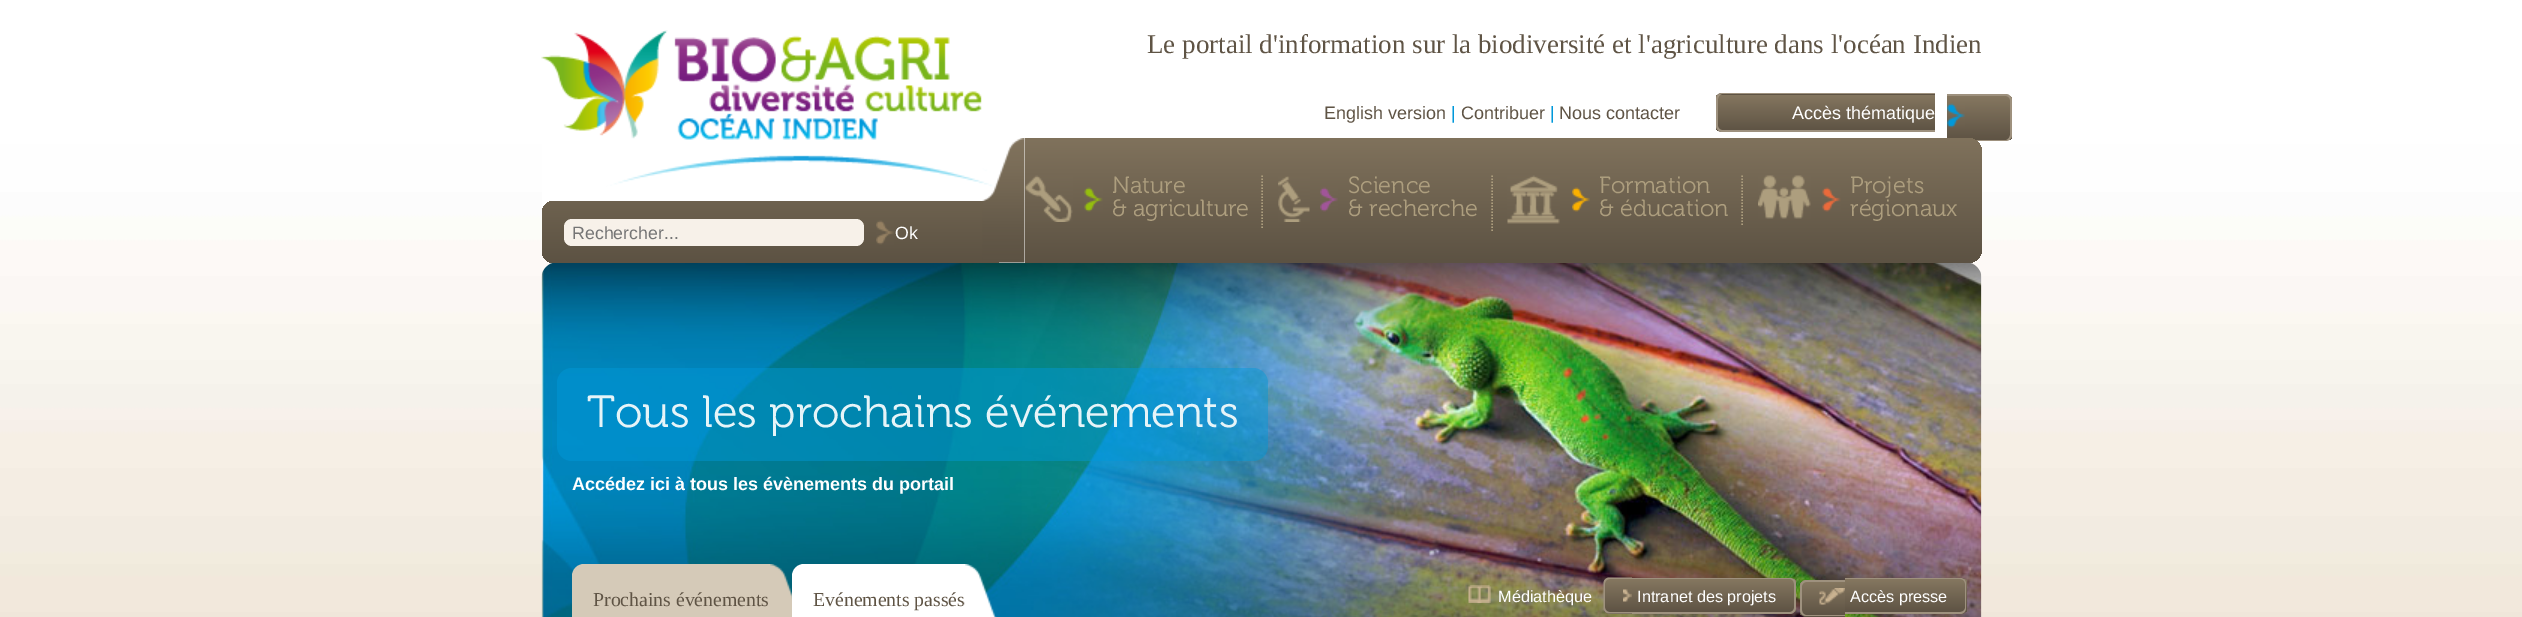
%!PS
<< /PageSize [2522 617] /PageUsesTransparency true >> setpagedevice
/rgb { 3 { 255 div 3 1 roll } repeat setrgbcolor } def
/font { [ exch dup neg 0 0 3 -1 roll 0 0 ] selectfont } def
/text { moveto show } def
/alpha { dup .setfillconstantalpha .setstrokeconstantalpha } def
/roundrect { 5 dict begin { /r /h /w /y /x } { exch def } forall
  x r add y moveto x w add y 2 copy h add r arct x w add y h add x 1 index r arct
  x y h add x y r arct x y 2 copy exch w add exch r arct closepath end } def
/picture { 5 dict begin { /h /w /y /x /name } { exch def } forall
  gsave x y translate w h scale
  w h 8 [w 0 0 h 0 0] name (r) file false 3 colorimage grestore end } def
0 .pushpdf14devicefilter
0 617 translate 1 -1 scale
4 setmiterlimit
255 255 255 rgb
0 0 2522 617 rectfill
(img_01.rgb) 0 0 2522 617 picture
542 30 moveto 1440 0 rlineto 0 218 rlineto 0 8.5 -6.5 15 -15 15 rcurveto -1410 0 rlineto -8.5 0 -15 -6.5 -15 -15 rcurveto closepath fill
(img_02.rgb) 541 30 455 157 picture
94 83 68 rgb
1722 93 moveto 213 0 rlineto 0 39 rlineto -213 0 rlineto -3.5 0 -6 -2.5 -6 -6 rcurveto 0 -27 rlineto 0 -3.5 2.5 -6 6 -6 rcurveto closepath fill
gsave
1722 93 moveto 213 0 rlineto 0 39 rlineto -213 0 rlineto -3.5 0 -6 -2.5 -6 -6 rcurveto 0 -27 rlineto 0 -3.5 2.5 -6 6 -6 rcurveto closepath clip newpath
gsave 1716 95 moveto 219 0 rlineto 0 36 rlineto -219 0 rlineto closepath clip newpath
<< /ShadingType 2 /ColorSpace /DeviceRGB /Coords [1826 94 1826 131] /Extend [true true] /Function << /FunctionType 2 /Domain [0 1] /C0 [0.522 0.467 0.376] /C1 [0.369 0.325 0.267] /N 1 >> >> shfill grestore
grestore
158 145 126 rgb
1722 93 moveto 213 0 rlineto 0 39 rlineto -213 0 rlineto -3 0 -6 -3 -6 -6 rcurveto 0 -27 rlineto 0 -3 3 -6 6 -6 rcurveto closepath 1722 94 moveto 213 0 rlineto 0 36 rlineto -213 0 rlineto -2 0 -4 -2 -4 -4 rcurveto 0 -27 rlineto 0 -2 2 -5 4 -5 rcurveto closepath eofill
gsave
1947 95 moveto 59 0 rlineto 3.5 0 6 2.5 6 6 rcurveto 0 34 rlineto 0 3.5 -2.5 6 -6 6 rcurveto -59 0 rlineto closepath clip newpath
gsave 1947 96 moveto 65 0 rlineto 0 44 rlineto -65 0 rlineto closepath clip newpath
<< /ShadingType 2 /ColorSpace /DeviceRGB /Coords [1979 96 1979 140] /Extend [true true] /Function << /FunctionType 2 /Domain [0 1] /C0 [0.522 0.467 0.376] /C1 [0.369 0.325 0.267] /N 1 >> >> shfill grestore
grestore
1947 94 moveto 59 0 rlineto 3 0 6 3 6 6 rcurveto 0 35 rlineto 0 3 -3 6 -6 6 rcurveto -59 0 rlineto closepath 1947 96 moveto 59 0 rlineto 2 0 4 2 4 4 rcurveto 0 35 rlineto 0 2 -2 5 -4 5 rcurveto -59 0 rlineto closepath eofill
(img_03.rgb) 1947 103 18 25 picture
(img_14.rgb) 541 262 1441 355 picture
gsave 1025 138 moveto 942 0 rlineto 8.5 0 15 6.5 15 15 rcurveto 0 95 rlineto 0 8.5 -6.5 15 -15 15 rcurveto -942 0 rlineto closepath clip newpath
<< /ShadingType 2 /ColorSpace /DeviceRGB /Coords [1503 138 1503 263] /Extend [true true] /Function << /FunctionType 2 /Domain [0 1] /C0 [0.502 0.447 0.361] /C1 [0.361 0.322 0.263] /N 1 >> >> shfill grestore
gsave 554 201 moveto 445 0 rlineto 0 62 rlineto -445 0 rlineto -6.5 0 -12 -5.5 -12 -12 rcurveto 0 -38 rlineto 0 -6.5 5.5 -12 12 -12 rcurveto closepath clip newpath
<< /ShadingType 2 /ColorSpace /DeviceRGB /Coords [770 201 770 263] /Extend [true true] /Function << /FunctionType 2 /Domain [0 1] /C0 [0.431 0.384 0.31] /C1 [0.361 0.322 0.263] /N 1 >> >> shfill grestore
(img_04.rgb) 982 138 43 125 picture
(img_05.rgb) 1084 187 19 25 picture
(img_06.rgb) 1025 175 48 47 picture
(img_07.rgb) 1320 187 18 25 picture
173 158 126 rgb
1.5 setlinewidth
[1.5 1.5] 0 setdash
1262 175.5 moveto 0 54 rlineto stroke
(img_08.rgb) 1278 176 32 46 picture
(img_09.rgb) 1572 187 18 25 picture
1492 175.5 moveto 0 55.5 rlineto stroke
(img_10.rgb) 1507 175 53 49 picture
(img_11.rgb) 1822 187 19 25 picture
1742 175.5 moveto 0 51 rlineto stroke
(img_12.rgb) 1758 175 53 44 picture
247 241 233 rgb
564 219 300 27 8 roundrect fill
(img_13.rgb) 876 220 18 25 picture
0.45 alpha
0 152 218 rgb
557 368 711 93 15 roundrect fill
1 alpha
213 202 184 rgb
584 564 moveto 186 0 rlineto 0 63 rlineto -198 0 rlineto 0 -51 rlineto 0 -6.5 5.5 -12 12 -12 rcurveto closepath fill
(img_15.rgb) 770 564 22 53 picture
255 255 255 rgb
804 564 moveto 161 0 rlineto 0 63 rlineto -173 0 rlineto 0 -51 rlineto 0 -6.5 5.5 -12 12 -12 rcurveto closepath fill
(img_17.rgb) 1468 585 23 18 picture
94 83 68 rgb
1610 578 moveto 22 0 rlineto 0 36 rlineto -22 0 rlineto -3.5 0 -6 -2.5 -6 -6 rcurveto 0 -24 rlineto 0 -3.5 2.5 -6 6 -6 rcurveto closepath fill
gsave
1610 578 moveto 22 0 rlineto 0 36 rlineto -22 0 rlineto -3.5 0 -6 -2.5 -6 -6 rcurveto 0 -24 rlineto 0 -3.5 2.5 -6 6 -6 rcurveto closepath clip newpath
gsave 1604 579 moveto 28 0 rlineto 0 33 rlineto -28 0 rlineto closepath clip newpath
<< /ShadingType 2 /ColorSpace /DeviceRGB /Coords [1619 579 1619 612] /Extend [true true] /Function << /FunctionType 2 /Domain [0 1] /C0 [0.522 0.467 0.376] /C1 [0.369 0.325 0.267] /N 1 >> >> shfill grestore
grestore
158 145 126 rgb
1609.5 577.5 moveto 22.5 0 rlineto 0 36 rlineto -22.5 0 rlineto -3.5 0 -6 -2.5 -6 -6 rcurveto 0 -24 rlineto 0 -3.5 2.5 -6 6 -6 rcurveto closepath 1609.5 579 moveto 22.5 0 rlineto 0 33 rlineto -22.5 0 rlineto -2.5 0 -4.5 -2 -4.5 -4.5 rcurveto 0 -24 rlineto 0 -2.5 2 -4.5 4.5 -4.5 rcurveto closepath eofill
(img_18.rgb) 1623 589 9 13 picture
gsave
1632 578 moveto 158 0 rlineto 3.5 0 6 2.5 6 6 rcurveto 0 24 rlineto 0 3.5 -2.5 6 -6 6 rcurveto -158 0 rlineto closepath clip newpath
gsave 1632 579 moveto 164 0 rlineto 0 33 rlineto -164 0 rlineto closepath clip newpath
<< /ShadingType 2 /ColorSpace /DeviceRGB /Coords [1713 579 1713 612] /Extend [true true] /Function << /FunctionType 2 /Domain [0 1] /C0 [0.522 0.467 0.376] /C1 [0.369 0.325 0.267] /N 1 >> >> shfill grestore
grestore
1632 578 moveto 158 0 rlineto 3 0 6 2 6 6 rcurveto 0 24 rlineto 0 3 -3 6 -6 6 rcurveto -158 0 rlineto closepath 1632 579 moveto 158 0 rlineto 2 0 4 2 4 5 rcurveto 0 24 rlineto 0 2 -2 4 -4 4 rcurveto -158 0 rlineto closepath eofill
94 83 68 rgb
1806 581 moveto 39 0 rlineto 0 36 rlineto -39 0 rlineto -3.5 0 -6 -2.5 -6 -6 rcurveto 0 -24 rlineto 0 -3.5 2.5 -6 6 -6 rcurveto closepath fill
gsave
1806 581 moveto 39 0 rlineto 0 36 rlineto -39 0 rlineto -3.5 0 -6 -2.5 -6 -6 rcurveto 0 -24 rlineto 0 -3.5 2.5 -6 6 -6 rcurveto closepath clip newpath
gsave 1800 582 moveto 45 0 rlineto 0 33 rlineto -45 0 rlineto closepath clip newpath
<< /ShadingType 2 /ColorSpace /DeviceRGB /Coords [1823 582 1823 615] /Extend [true true] /Function << /FunctionType 2 /Domain [0 1] /C0 [0.522 0.467 0.376] /C1 [0.369 0.325 0.267] /N 1 >> >> shfill grestore
grestore
158 145 126 rgb
1806 580 moveto 39 0 rlineto 0 36 rlineto -39 0 rlineto -3 0 -6 -2 -6 -6 rcurveto 0 -24 rlineto 0 -3 3 -6 6 -6 rcurveto closepath 1806 582 moveto 39 0 rlineto 0 33 rlineto -39 0 rlineto -2 0 -4 -2 -4 -5 rcurveto 0 -24 rlineto 0 -2 2 -4 4 -4 rcurveto closepath eofill
(img_19.rgb) 1819 588 26 17 picture
94 83 68 rgb
1845 578 moveto 116 0 rlineto 3.5 0 6 2.5 6 6 rcurveto 0 24 rlineto 0 3.5 -2.5 6 -6 6 rcurveto -116 0 rlineto closepath fill
gsave
1845 578 moveto 116 0 rlineto 3.5 0 6 2.5 6 6 rcurveto 0 24 rlineto 0 3.5 -2.5 6 -6 6 rcurveto -116 0 rlineto closepath clip newpath
gsave 1845 579 moveto 122 0 rlineto 0 33 rlineto -122 0 rlineto closepath clip newpath
<< /ShadingType 2 /ColorSpace /DeviceRGB /Coords [1905 579 1905 612] /Extend [true true] /Function << /FunctionType 2 /Domain [0 1] /C0 [0.522 0.467 0.376] /C1 [0.369 0.325 0.267] /N 1 >> >> shfill grestore
grestore
158 145 126 rgb
1845 578 moveto 115 0 rlineto 4 0 6 2 6 6 rcurveto 0 24 rlineto 0 3 -2 6 -6 6 rcurveto -115 0 rlineto closepath 1845 579 moveto 115 0 rlineto 3 0 5 2 5 5 rcurveto 0 24 rlineto 0 2 -2 4 -5 4 rcurveto -115 0 rlineto closepath eofill
/LiberationSerif-Regular 27 font
95 84 69 rgb
(Le portail d'information sur la biodiversité et l'agriculture dans l'océan Indien) 1147 53 text
/LiberationSans-Regular 18 font
(English version) 1324 119 text
0 152 218 rgb
(|) 1451 119 text
95 84 69 rgb
(Contribuer) 1461 119 text
0 152 218 rgb
(|) 1550 119 text
95 84 69 rgb
(Nous contacter) 1559 119 text
255 255 255 rgb
(Accès thématique) 1792 119 text
/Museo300-Regular 23.5 font
173 158 126 rgb
(Nature) 1112 193 text
(& agriculture) 1112 216 text
(Science) 1348 193 text
(& recherche) 1348 216 text
(Formation) 1599 193 text
(& éducation) 1599 216 text
(Projets) 1850 193 text
(régionaux) 1850 216 text
/LiberationSans-Regular 17.75 font
117 117 117 rgb
(Rechercher...) 572 239 text
255 255 255 rgb
(Ok) 895 239 text
/Museo300-Regular 45 font
230 244 248 rgb
(Tous les prochains événements) 587 427 text
/LiberationSans-Bold 18 font
255 255 255 rgb
(Accédez ici à tous les évènements du portail) 572 490 text
/LiberationSerif-Regular 19.75 font
95 84 69 rgb
(Prochains événements) 593 606 text
(Evénements passés) 813 606 text
(img_16.rgb) 964 564 33 53 picture
/LiberationSans-Regular 16.25 font
255 255 255 rgb
(Médiathèque) 1498 602 text
(Intranet des projets) 1637 602 text
(Accès presse) 1850 602 text
.poppdf14devicefilter showpage
